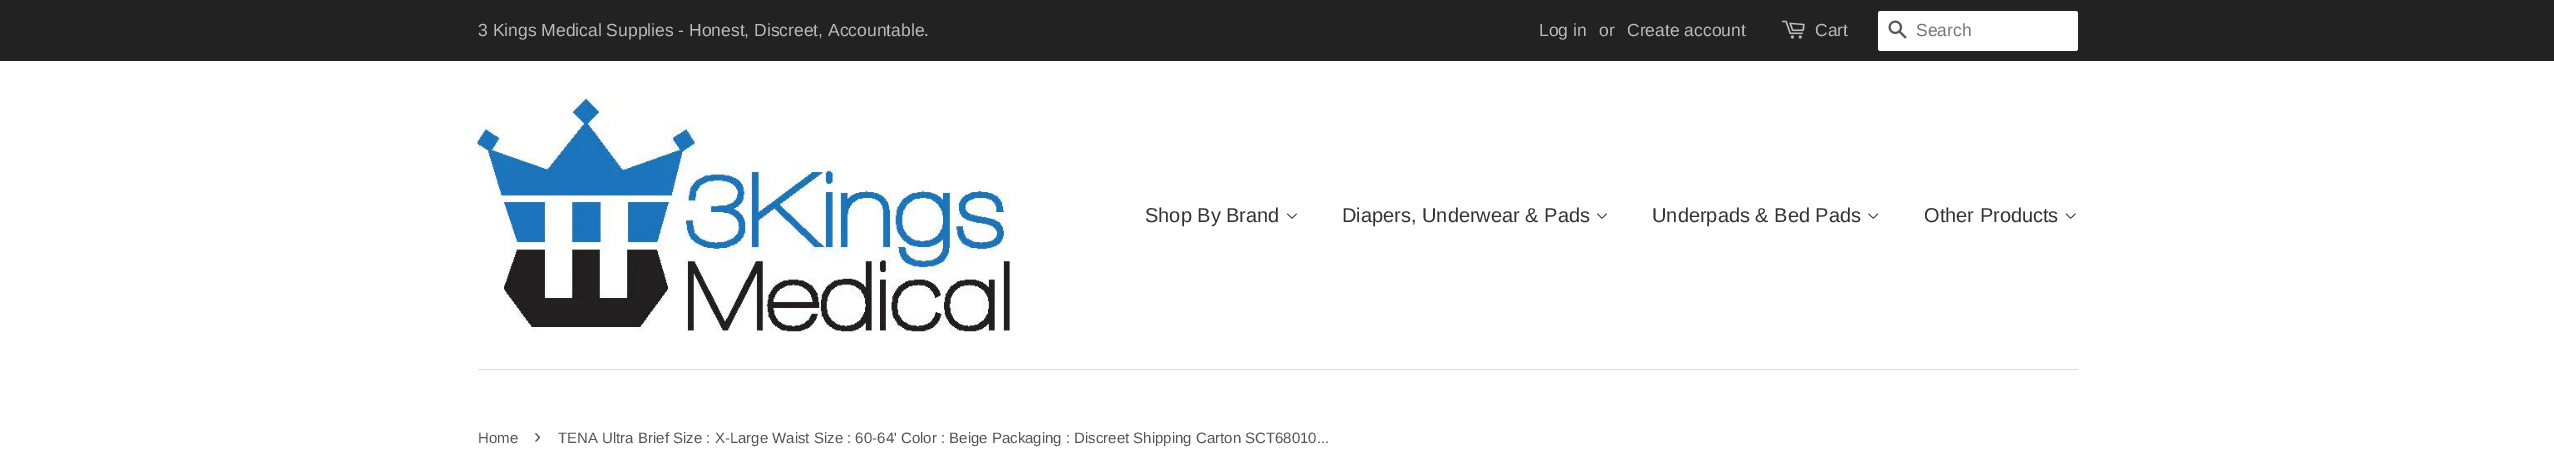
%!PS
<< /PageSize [2554 457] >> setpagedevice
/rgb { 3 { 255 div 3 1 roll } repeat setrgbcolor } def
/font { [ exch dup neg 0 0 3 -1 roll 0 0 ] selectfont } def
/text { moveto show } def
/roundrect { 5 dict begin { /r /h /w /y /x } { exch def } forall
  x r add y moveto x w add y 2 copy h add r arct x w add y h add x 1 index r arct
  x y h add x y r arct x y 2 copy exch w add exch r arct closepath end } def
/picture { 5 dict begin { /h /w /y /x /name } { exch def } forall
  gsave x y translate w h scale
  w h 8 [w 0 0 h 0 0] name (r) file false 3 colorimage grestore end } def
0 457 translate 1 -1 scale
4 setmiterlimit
255 255 255 rgb
0 0 2554 457 rectfill
34 34 34 rgb
0 0 2554 61 rectfill
(img_01.rgb) 1781 20 24 19 picture
255 255 255 rgb
1878 11 200 40 2.5 roundrect fill
(img_02.rgb) 1888 20 19 19 picture
221 221 221 rgb
478 369 1600 1 rectfill
(img_03.rgb) 477 98 533 234 picture
(img_04.rgb) 1287 213 10 6 picture
(img_04.rgb) 1597 213 10 6 picture
(img_05.rgb) 1868 213 11 6 picture
(img_06.rgb) 2065 213 11 6 picture
/LiberationSans-Regular 17.5 font
187 187 187 rgb
(3 Kings Medical Supplies - Honest, Discreet, Accountable.) 478 36 text
(Log in) 1539 36 text
(or) 1599 36 text
(Create account) 1627 36 text
(Cart) 1815 36 text
117 117 117 rgb
(Search) 1916 36 text
/LiberationSans-Regular 20 font
51 51 51 rgb
(Shop By Brand) 1145 222 text
(Diapers, Underwear & Pads) 1342 222 text
(Underpads & Bed Pads) 1652 222 text
(Other Products) 1924 222 text
/LiberationSans-Regular 15 font
85 85 85 rgb
(Home) 478 443 text
/LiberationSans-Regular 21 font
(›) 534 443 text
/LiberationSans-Regular 15 font
(TENA Ultra Brief Size : X-Large Waist Size : 60-64' Color : Beige Packaging : Discreet Shipping Carton SCT68010...) 558 443 text
showpage
